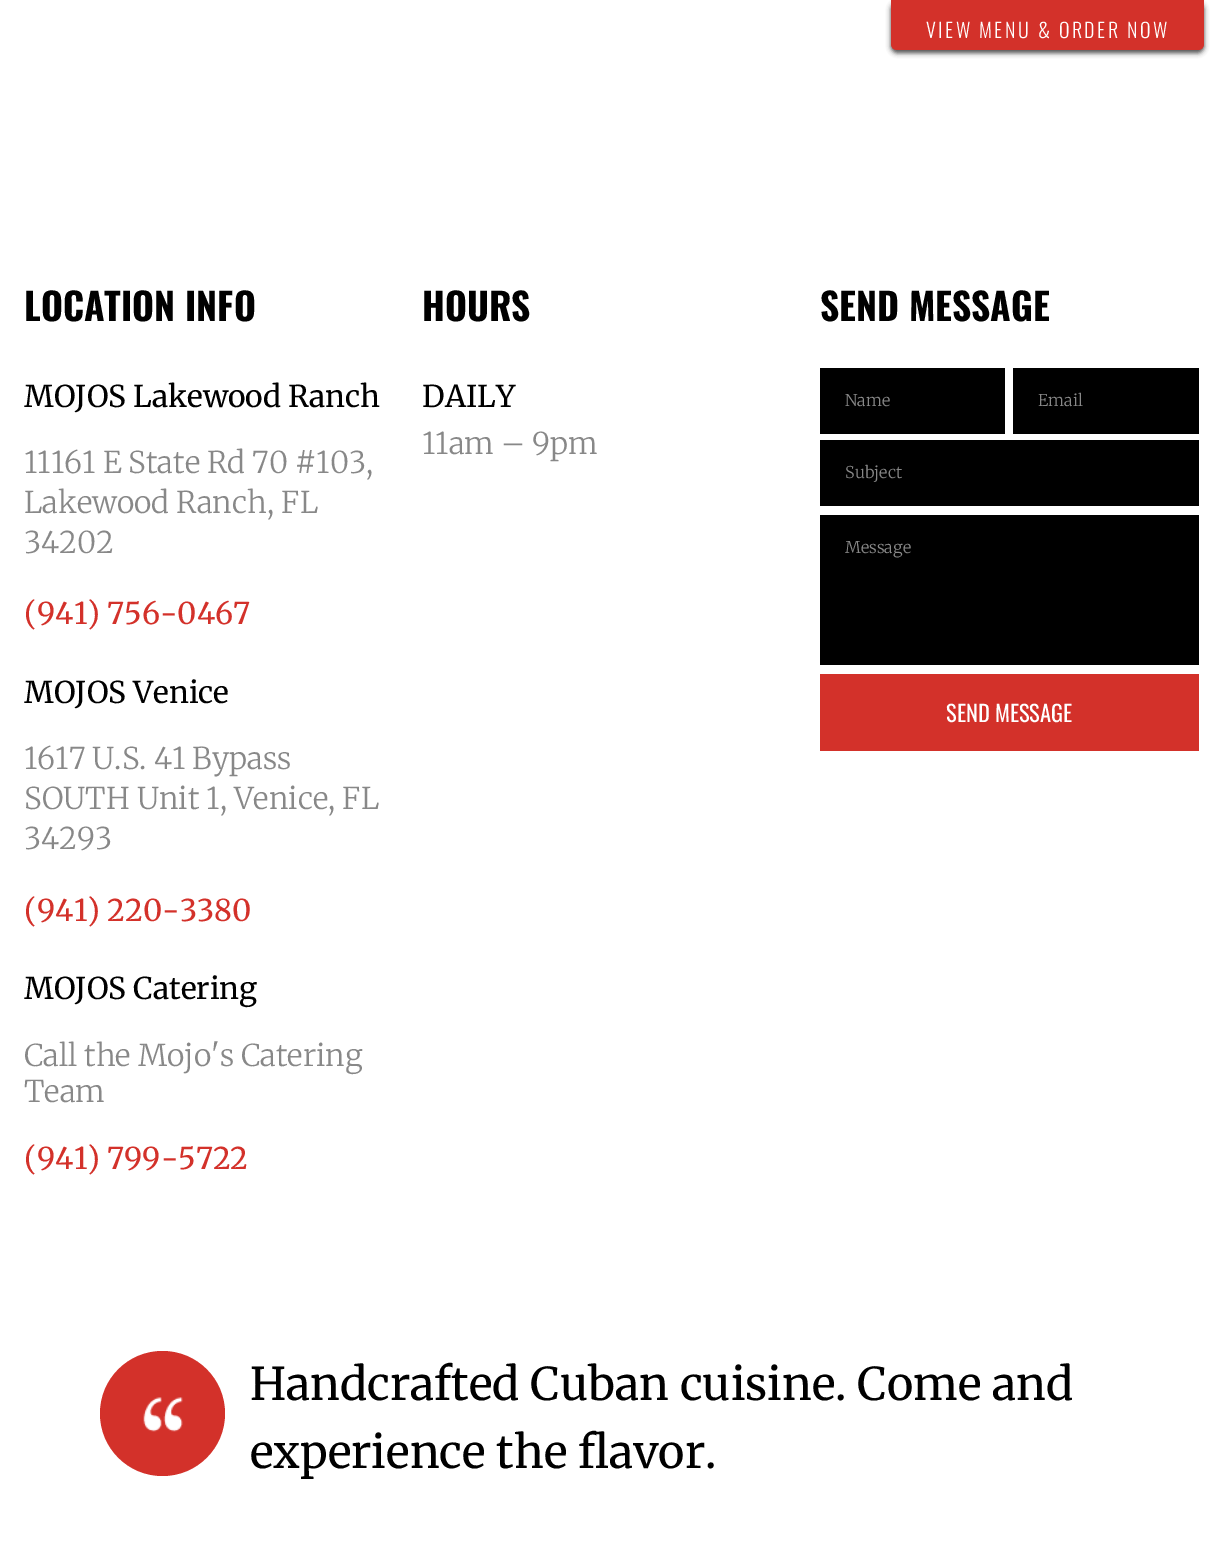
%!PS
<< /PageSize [1222 1555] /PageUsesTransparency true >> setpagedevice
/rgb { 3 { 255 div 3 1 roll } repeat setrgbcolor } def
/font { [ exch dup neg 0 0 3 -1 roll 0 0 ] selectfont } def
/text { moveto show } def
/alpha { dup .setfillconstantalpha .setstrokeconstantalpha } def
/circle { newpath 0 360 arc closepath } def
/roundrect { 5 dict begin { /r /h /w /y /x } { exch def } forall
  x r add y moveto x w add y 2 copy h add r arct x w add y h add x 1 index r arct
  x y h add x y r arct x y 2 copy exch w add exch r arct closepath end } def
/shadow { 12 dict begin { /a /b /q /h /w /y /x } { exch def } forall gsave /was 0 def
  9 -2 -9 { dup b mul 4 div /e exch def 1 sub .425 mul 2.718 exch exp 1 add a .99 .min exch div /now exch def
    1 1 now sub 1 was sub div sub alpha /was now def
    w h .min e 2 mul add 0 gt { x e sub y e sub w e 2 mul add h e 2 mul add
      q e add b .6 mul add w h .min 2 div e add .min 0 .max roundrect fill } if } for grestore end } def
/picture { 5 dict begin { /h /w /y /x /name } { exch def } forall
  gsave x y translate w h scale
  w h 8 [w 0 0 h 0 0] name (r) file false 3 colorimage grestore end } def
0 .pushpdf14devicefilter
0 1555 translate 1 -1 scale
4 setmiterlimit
255 255 255 rgb
0 0 1222 1555 rectfill
0 0 0 rgb
891 3 313 50 6 2.5 0.7 shadow
211 49 42 rgb
891 0 moveto 313 0 rlineto 0 44 rlineto 0 3.5 -2.5 6 -6 6 rcurveto -301 0 rlineto -3.5 0 -6 -2.5 -6 -6 rcurveto closepath fill
0 0 0 rgb
820 368 185 66 rectfill
1013 368 186 66 rectfill
820 440 379 66 rectfill
820 515 379 150 rectfill
211 49 42 rgb
820 674 379 77 rectfill
162.5 1413.5 62.5 circle fill
(img_01.rgb) 143 1397 40 35 picture
/Oswald-Light 20 font
255 255 255 rgb
926 38 moveto 2.5 0 (VIEW MENU & ORDER NOW) ashow
/Oswald-Bold 37.5 font
0 0 0 rgb
(LOCATION INFO) 24 321 text
/Merriweather-Regular 30 font
(MOJOS Lakewood Ranch) 24 407 text
/Merriweather-Light 30 font
136 136 136 rgb
(11161 E State Rd 70 #103,) 24 473 text
(Lakewood Ranch, FL) 24 513 text
(34202) 24 553 text
/Merriweather-Regular 30 font
211 49 42 rgb
(\(941\) 756-0467) 24 624 text
0 0 0 rgb
(MOJOS Venice) 24 703 text
/Merriweather-Light 30 font
136 136 136 rgb
(1617 U.S. 41 Bypass) 24 769 text
(SOUTH Unit 1, Venice, FL) 24 809 text
(34293) 24 849 text
/Merriweather-Regular 30 font
211 49 42 rgb
(\(941\) 220-3380) 24 921 text
0 0 0 rgb
(MOJOS Catering) 24 999 text
/Merriweather-Light 30 font
136 136 136 rgb
(Call the Mojo's Catering) 24 1066 text
(Team) 24 1102 text
/Merriweather-Regular 30 font
211 49 42 rgb
(\(941\) 799-5722) 24 1169 text
/Oswald-Bold 37.5 font
0 0 0 rgb
(HOURS) 422 321 text
/Merriweather-Regular 30 font
(DAILY) 422 407 text
/Merriweather-Light 30 font
136 136 136 rgb
(11am – 9pm) 422 454 text
/Oswald-Bold 37.5 font
0 0 0 rgb
(SEND MESSAGE) 820 321 text
/Merriweather-Light 16.25 font
136 136 136 rgb
(Name) 845 406 text
(Email) 1038 406 text
(Subject) 845 478 text
(Message) 845 553 text
/Oswald-Regular 22.5 font
255 255 255 rgb
(SEND MESSAGE) 946 722 text
/Merriweather-Regular 45 font
0 0 0 rgb
(Handcrafted Cuban cuisine. Come and) 250 1400 text
(experience the flavor.) 250 1468 text
.poppdf14devicefilter showpage
